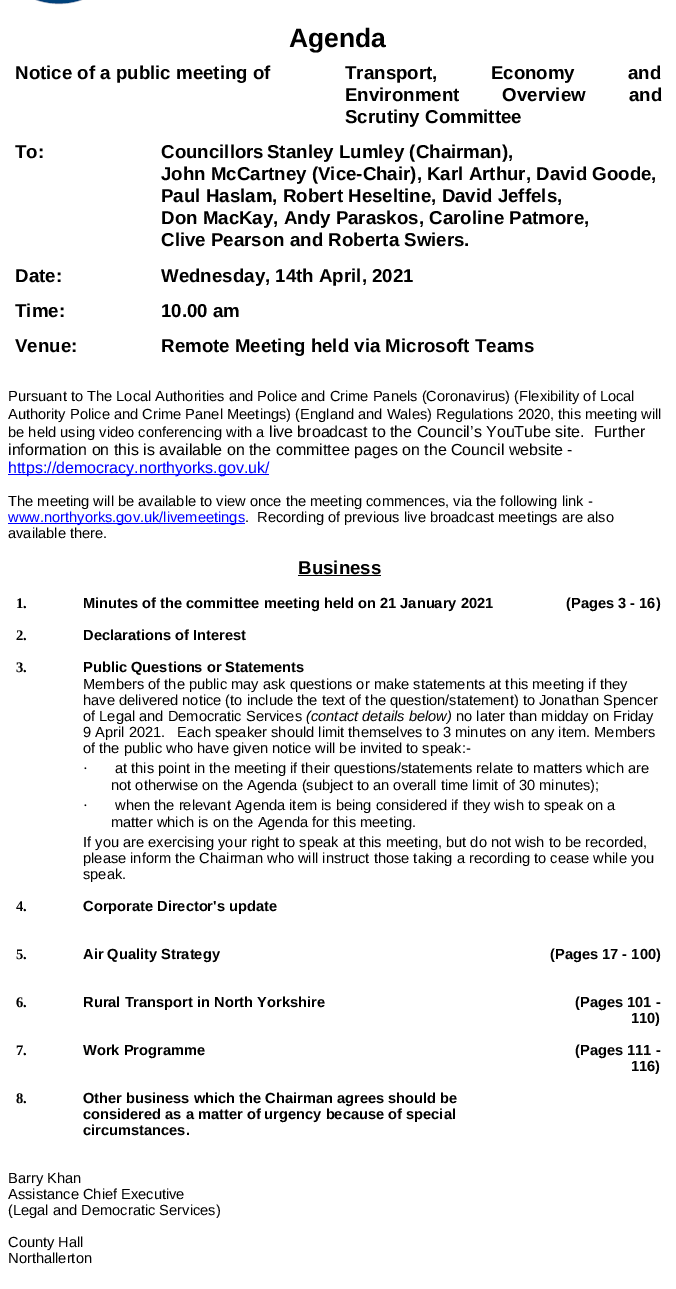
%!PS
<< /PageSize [676 1289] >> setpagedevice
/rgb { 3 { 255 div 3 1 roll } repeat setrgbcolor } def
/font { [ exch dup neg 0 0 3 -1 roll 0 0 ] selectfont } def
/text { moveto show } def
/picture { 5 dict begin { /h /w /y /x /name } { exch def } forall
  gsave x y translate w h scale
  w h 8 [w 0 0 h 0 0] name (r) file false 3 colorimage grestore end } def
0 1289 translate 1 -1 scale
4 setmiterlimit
255 255 255 rgb
0 0 676 1289 rectfill
(img_01.rgb) 35 0 48 5 picture
0 0 255 rgb
8 474 261 1 rectfill
8 523 237 1 rectfill
0 0 0 rgb
298 575 83 1 rectfill
/LiberationSans-Bold 26.5 font
(Agenda) 289 47 text
/LiberationSans-Bold 18.7 font
(Notice of a public meeting of) 15 79 text
345 79 moveto 48 0 32 (Transport, Economy and) widthshow
345 101 moveto 38 0 32 (Environment Overview and) widthshow
(Scrutiny Committee) 345 123 text
(To:) 15 158 text
(Councillors) 161 158 text
(Stanley Lumley \(Chairman\),) 267 158 text
(John McCartney \(Vice-Chair\), Karl Arthur, David Goode,) 161 180 text
(Paul Haslam, Robert Heseltine, David Jeffels,) 161 202 text
(Don MacKay, Andy Paraskos, Caroline Patmore,) 161 224 text
(Clive Pearson and Roberta Swiers.) 161 246 text
(Date:) 15 282 text
(Wednesday, 14th April, 2021) 161 282 text
(Time:) 15 317 text
(10.00 am) 161 317 text
(Venue:) 15 352 text
(Remote Meeting held via Microsoft Teams) 161 352 text
/LiberationSans-Regular 14.65 font
(Pursuant to The Local Authorities and Police and Crime Panels \(Coronavirus\) \(Flexibility of Local) 8 401 text
(Authority Police and Crime Panel Meetings\) \(England and Wales\) Regulations 2020, this meeting will) 8 419 text
(be held using video conferencing with a) 8 437 text
/LiberationSans-Regular 16 font
(live broadcast to the Council’s YouTube site.  Further) 269 437 text
(information on this is available on the committee pages on the Council website -) 8 455 text
0 0 255 rgb
(https://democracy.northyorks.gov.uk/) 8 473 text
/LiberationSans-Regular 14.65 font
0 0 0 rgb
(The meeting will be available to view once the meeting commences, via the following link -) 8 506 text
0 0 255 rgb
(www.northyorks.gov.uk/livemeetings) 8 522 text
0 0 0 rgb
(.  Recording of previous live broadcast meetings are also) 245 522 text
(available there.) 8 538 text
/LiberationSans-Bold 18.7 font
(Business) 298 574 text
/LiberationSerif-Bold 14.65 font
(1.) 16 608 text
/LiberationSans-Bold 14.65 font
(Minutes of the committee meeting held on 21 January 2021) 83 608 text
(\(Pages 3 - 16\)) 566 608 text
/LiberationSerif-Bold 14.65 font
(2.) 16 640 text
/LiberationSans-Bold 14.65 font
(Declarations of Interest) 83 640 text
/LiberationSerif-Bold 14.65 font
(3.) 16 672 text
/LiberationSans-Bold 14.65 font
(Public Questions or Statements) 83 672 text
/LiberationSans-Regular 14.65 font
(Members of the public may ask questions or make statements at this meeting if they) 83 689 text
(have delivered notice \(to include the text of the question/statement\) to Jonathan Spencer) 83 705 text
(of Legal and Democratic Services) 83 721 text
/LiberationSans-Italic 14.65 font
(\(contact details below\)) 306 721 text
/LiberationSans-Regular 14.65 font
(no later than midday on Friday) 456 721 text
(9 April 2021.   Each speaker should limit themselves to 3 minutes on any item. Members) 83 737 text
(of the public who have given notice will be invited to speak:-) 83 753 text
/LiberationSerif-Regular 14.65 font
(·) 83 773 text
/LiberationSans-Regular 14.65 font
(at this point in the meeting if their questions/statements relate to matters which are) 115 773 text
(not otherwise on the Agenda \(subject to an overall time limit of 30 minutes\);) 111 790 text
/LiberationSerif-Regular 14.65 font
(·) 83 810 text
/LiberationSans-Regular 14.65 font
(when the relevant Agenda item is being considered if they wish to speak on a) 115 810 text
(matter which is on the Agenda for this meeting.) 111 827 text
(If you are exercising your right to speak at this meeting, but do not wish to be recorded,) 83 847 text
(please inform the Chairman who will instruct those taking a recording to cease while you) 83 863 text
(speak.) 83 879 text
/LiberationSerif-Bold 14.65 font
(4.) 16 911 text
/LiberationSans-Bold 14.65 font
(Corporate Director's update) 83 911 text
/LiberationSerif-Bold 14.65 font
(5.) 16 959 text
/LiberationSans-Bold 14.65 font
(Air Quality Strategy) 83 959 text
(\(Pages 17 - 100\)) 550 959 text
/LiberationSerif-Bold 14.65 font
(6.) 16 1007 text
/LiberationSans-Bold 14.65 font
(Rural Transport in North Yorkshire) 83 1007 text
(\(Pages 101 -) 575 1007 text
(110\)) 631 1023 text
/LiberationSerif-Bold 14.65 font
(7.) 16 1055 text
/LiberationSans-Bold 14.65 font
(Work Programme) 83 1055 text
(\(Pages 111 -) 575 1055 text
(116\)) 631 1071 text
/LiberationSerif-Bold 14.65 font
(8.) 16 1103 text
/LiberationSans-Bold 14.65 font
(Other business which the Chairman agrees should be) 83 1103 text
(considered as a matter of urgency because of special) 83 1119 text
(circumstances.) 83 1135 text
/LiberationSans-Regular 14.65 font
(Barry Khan) 8 1183 text
(Assistance Chief Executive) 8 1199 text
(\(Legal and Democratic Services\)) 8 1215 text
(County Hall) 8 1247 text
(Northallerton) 8 1263 text
showpage
